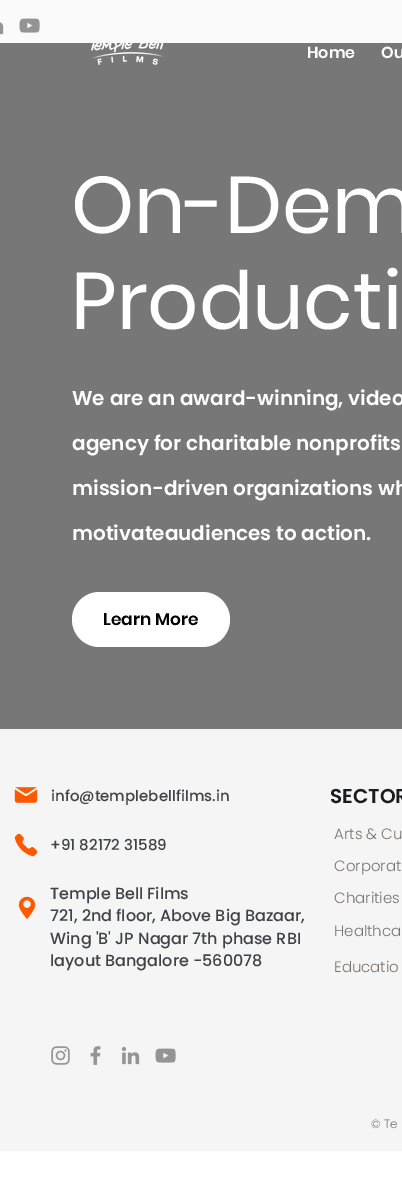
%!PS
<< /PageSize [402 1193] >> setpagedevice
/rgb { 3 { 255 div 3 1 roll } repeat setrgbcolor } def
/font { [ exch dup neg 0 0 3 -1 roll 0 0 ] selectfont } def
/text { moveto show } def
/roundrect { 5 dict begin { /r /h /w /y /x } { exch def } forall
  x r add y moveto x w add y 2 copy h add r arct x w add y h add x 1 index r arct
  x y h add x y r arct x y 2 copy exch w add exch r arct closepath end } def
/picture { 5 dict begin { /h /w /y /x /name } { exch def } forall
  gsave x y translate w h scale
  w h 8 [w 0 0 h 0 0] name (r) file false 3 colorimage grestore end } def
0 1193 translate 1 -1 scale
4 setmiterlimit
255 255 255 rgb
0 0 402 1193 rectfill
250 250 250 rgb
0 0 402 43 rectfill
(img_01.rgb) 0 22 4 13 picture
(img_02.rgb) 19 18 21 15 picture
119 119 120 rgb
0 43 402 686 rectfill
(img_03.rgb) 91 43 73 22 picture
255 255 255 rgb
72 592 158 55 27.5 roundrect fill
245 245 245 rgb
0 729 402 422 rectfill
(img_04.rgb) 14 787 24 16 picture
(img_05.rgb) 14 833 24 24 picture
(img_06.rgb) 18 896 18 23 picture
(img_07.rgb) 51 1046 19 19 picture
(img_08.rgb) 90 1046 11 19 picture
(img_09.rgb) 121 1046 19 19 picture
(img_10.rgb) 155 1048 21 15 picture
/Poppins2-SemiBold 16 font
255 255 255 rgb
(Home) 307 58 text
(Ou) 381 58 text
/Poppins-Regular 80 font
(On-Dem) 71 233 text
(Producti) 71 329 text
/Poppins-SemiBold 20 font
(We are an award-winning, video) 72 405 text
(agency for charitable nonprofits) 72 450 text
(mission-driven organizations wh) 72 495 text
(motivateaudiences to action.) 72 540 text
/Poppins2-SemiBold 17 font
0 0 0 rgb
(Learn More) 103 625 text
/Poppins-Medium 15 font
63 67 73 rgb
(info@templebellfilms.in) 51 801 text
(+91 82172 31589) 50 850 text
/Poppins-Medium 16 font
(Temple Bell Films) 50 899 text
(721, 2nd floor, Above Big Bazaar,) 50 921 text
(Wing 'B' JP Nagar 7th phase RBI) 50 944 text
(layout Bangalore -560078) 50 966 text
/Poppins-SemiBold 20 font
27 28 30 rgb
(SECTOR) 330 803 text
/Poppins-Light 15 font
123 115 111 rgb
(Arts & Cu) 334 839 text
(Corporat) 334 871 text
(Charities) 334 903 text
(Healthca) 334 936 text
(Educatio) 334 972 text
/Poppins-Light 12 font
(© Te) 371 1128 text
showpage
